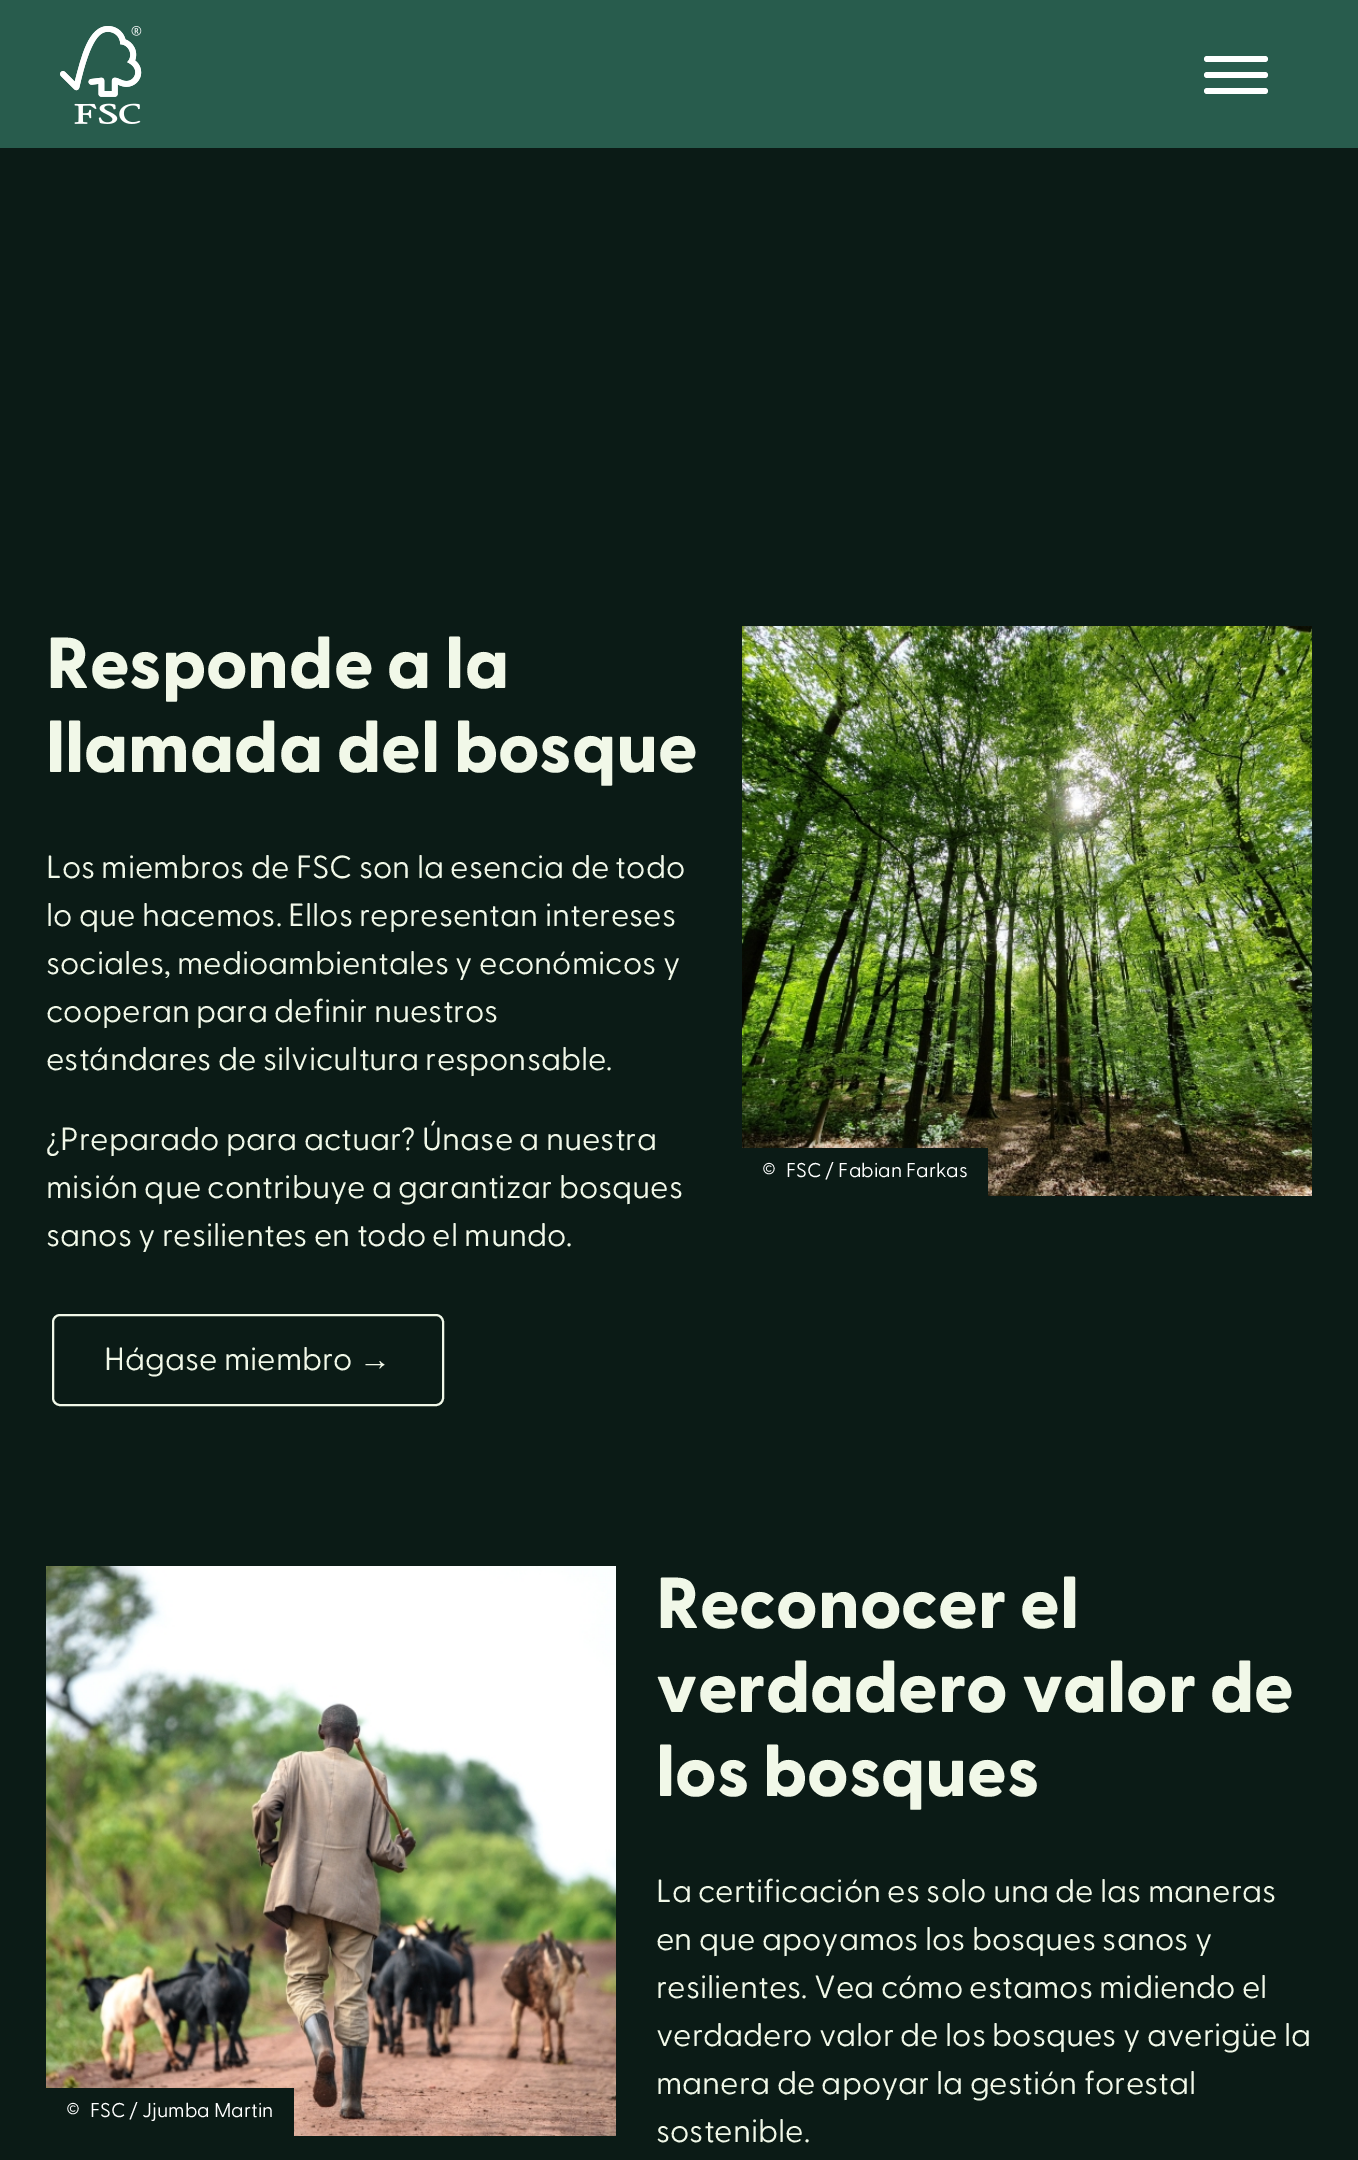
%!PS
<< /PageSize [1358 2160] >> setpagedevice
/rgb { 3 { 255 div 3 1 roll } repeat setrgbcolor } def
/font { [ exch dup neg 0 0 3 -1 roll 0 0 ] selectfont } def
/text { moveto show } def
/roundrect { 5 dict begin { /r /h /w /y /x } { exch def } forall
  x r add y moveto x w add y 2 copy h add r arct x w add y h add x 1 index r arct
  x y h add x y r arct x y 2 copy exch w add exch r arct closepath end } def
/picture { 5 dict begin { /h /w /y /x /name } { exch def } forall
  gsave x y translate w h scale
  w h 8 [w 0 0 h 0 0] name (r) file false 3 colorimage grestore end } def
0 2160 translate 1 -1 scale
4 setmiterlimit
11 27 22 rgb
0 0 1358 2160 rectfill
40 92 77 rgb
0 0 1358 148 rectfill
(img_01.rgb) 60 26 82 98 picture
255 255 255 rgb
1204 56 64 6 3 roundrect fill
1204 72 64 6 3 roundrect fill
1204 88 64 6 3 roundrect fill
241 248 232 rgb
2 setlinewidth
53 1315 390 90 7 roundrect stroke
(img_02.rgb) 742 626 570 570 picture
11 27 22 rgb
742 1148 246 48 rectfill
(img_03.rgb) 46 1566 570 570 picture
46 2088 248 48 rectfill
/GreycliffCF-ExtraBold 72 font
241 248 232 rgb
(Responde a la) 46 688 text
(llamada del bosque) 46 772 text
/GreycliffCF-Regular 32 font
(Los miembros de FSC son la esencia de todo) 46 878 text
(lo que hacemos. Ellos representan intereses) 46 926 text
(sociales, medioambientales y económicos y) 46 974 text
(cooperan para definir nuestros) 46 1022 text
(estándares de silvicultura responsable.) 46 1070 text
(¿Preparado para actuar? Únase a nuestra) 46 1150 text
(misión que contribuye a garantizar bosques) 46 1198 text
(sanos y resilientes en todo el mundo.) 46 1246 text
(Hágase miembro) 104 1370 text
/LiberationSans-Regular 32 font
(→) 359 1370 text
/GreycliffCF-Regular 20 font
255 255 255 rgb
(©) 762 1177 text
(FSC / Fabian Farkas) 786 1177 text
(©) 66 2117 text
(FSC / Jjumba Martin) 90 2117 text
/GreycliffCF-ExtraBold 72 font
241 248 232 rgb
(Reconocer el) 656 1628 text
(verdadero valor de) 656 1712 text
(los bosques) 656 1796 text
/GreycliffCF-Regular 32 font
(La certificación es solo una de las maneras) 656 1902 text
(en que apoyamos los bosques sanos y) 656 1950 text
(resilientes. Vea cómo estamos midiendo el) 656 1998 text
(verdadero valor de los bosques y averigüe la) 656 2046 text
(manera de apoyar la gestión forestal) 656 2094 text
(sostenible.) 656 2142 text
showpage
